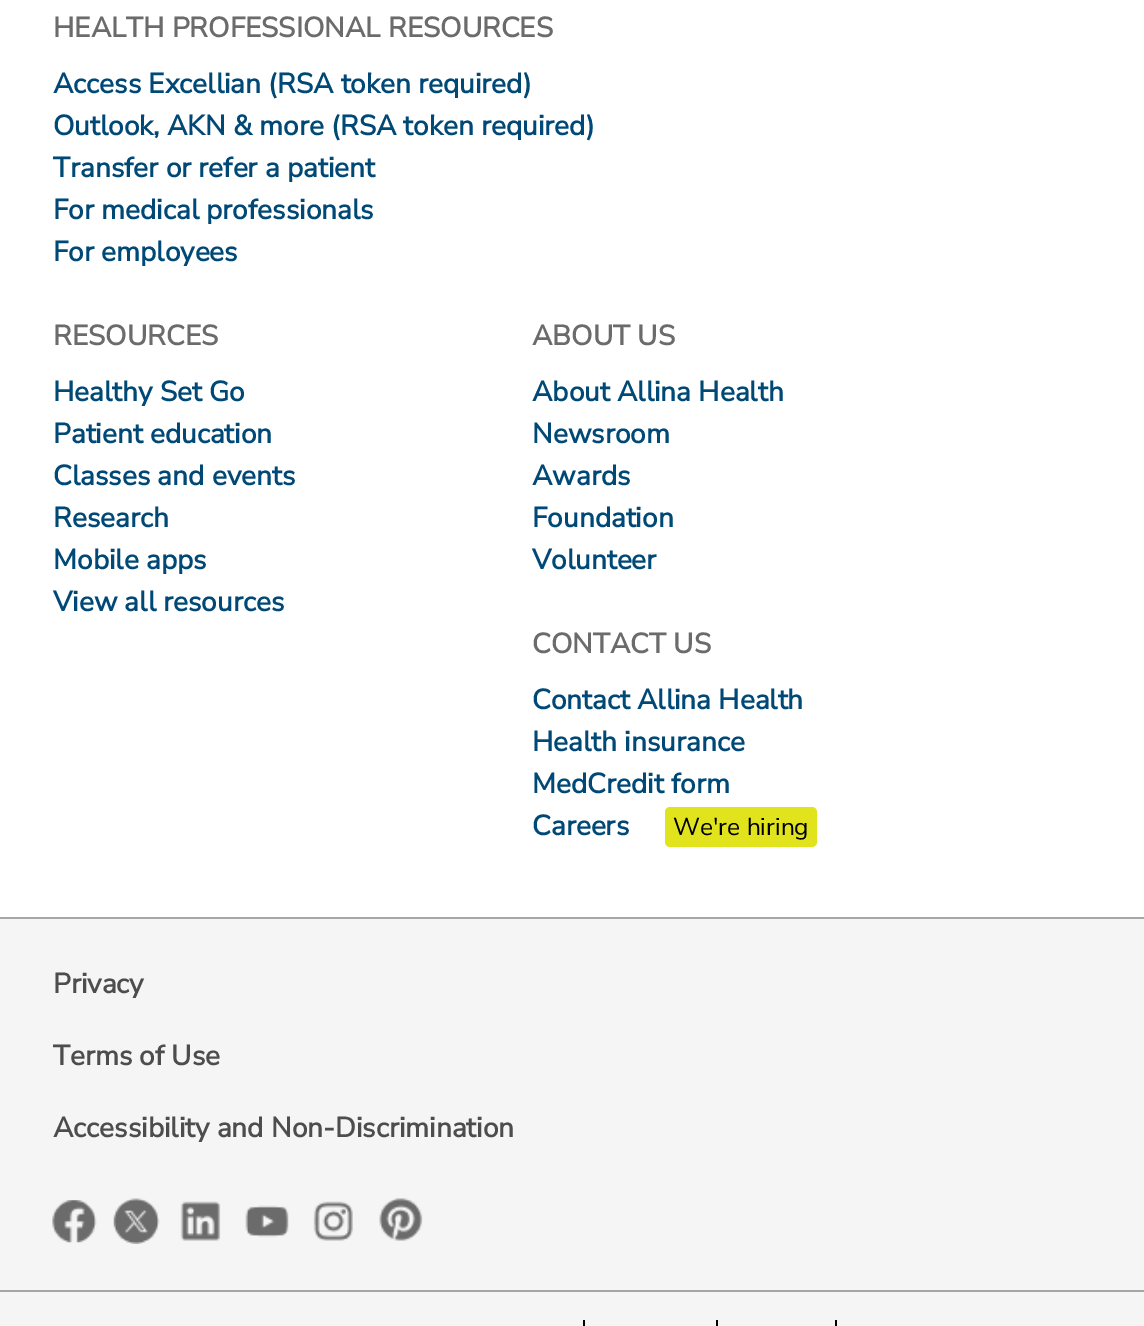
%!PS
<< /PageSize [1144 1326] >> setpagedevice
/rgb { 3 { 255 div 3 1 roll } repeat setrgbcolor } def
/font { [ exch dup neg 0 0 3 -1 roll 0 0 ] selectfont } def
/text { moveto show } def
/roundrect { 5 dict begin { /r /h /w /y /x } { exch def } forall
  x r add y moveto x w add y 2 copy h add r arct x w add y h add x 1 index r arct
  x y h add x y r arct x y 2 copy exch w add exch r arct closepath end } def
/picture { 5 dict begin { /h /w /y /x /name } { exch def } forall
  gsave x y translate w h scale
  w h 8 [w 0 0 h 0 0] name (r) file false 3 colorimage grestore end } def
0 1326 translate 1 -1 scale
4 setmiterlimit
255 255 255 rgb
0 0 1144 1326 rectfill
225 228 29 rgb
665 807 152 40 5 roundrect fill
245 245 245 rgb
0 919 1144 371 rectfill
166 166 166 rgb
0 917 1144 2 rectfill
(img_01.rgb) 52 1200 45 43 picture
(img_02.rgb) 113 1198 47 46 picture
(img_03.rgb) 180 1201 41 40 picture
(img_04.rgb) 245 1205 44 33 picture
(img_05.rgb) 313 1201 40 40 picture
(img_06.rgb) 379 1198 44 43 picture
245 245 245 rgb
0 1292 1144 34 rectfill
166 166 166 rgb
0 1290 1144 2 rectfill
0 0 0 rgb
583 1320 2 6 rectfill
716 1320 2 6 rectfill
835 1320 2 6 rectfill
/NunitoSans-Bold 28 font
107 107 107 rgb
(HEALTH PROFESSIONAL RESOURCES) 53 37 text
0 73 118 rgb
(Access Excellian \(RSA token required\)) 53 93 text
(Outlook, AKN & more \(RSA token required\)) 53 135 text
(Transfer or refer a patient) 53 177 text
(For medical professionals) 53 219 text
(For employees) 53 261 text
107 107 107 rgb
(RESOURCES) 53 345 text
0 73 118 rgb
(Healthy Set Go) 53 401 text
(Patient education) 53 443 text
(Classes and events) 53 485 text
(Research) 53 527 text
(Mobile apps) 53 569 text
(View all resources) 53 611 text
107 107 107 rgb
(ABOUT US) 532 345 text
0 73 118 rgb
(About Allina Health) 532 401 text
(Newsroom) 532 443 text
(Awards) 532 485 text
(Foundation) 532 527 text
(Volunteer) 532 569 text
107 107 107 rgb
(CONTACT US) 532 653 text
0 73 118 rgb
(Contact Allina Health) 532 709 text
(Health insurance) 532 751 text
(MedCredit form) 532 793 text
(Careers) 532 835 text
/NunitoSans-Regular 24.5 font
0 0 0 rgb
(We're hiring) 673 835 text
/NunitoSans-Bold 28 font
77 77 77 rgb
(Privacy) 53 993 text
(Terms of Use) 53 1065 text
(Accessibility and Non-Discrimination) 53 1137 text
showpage
